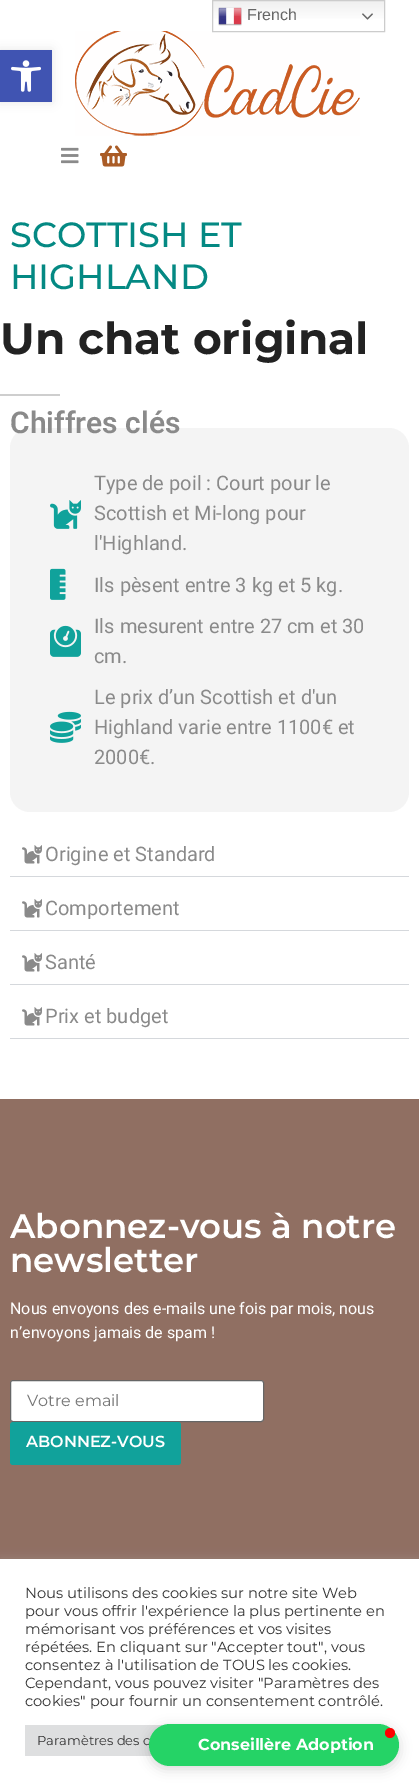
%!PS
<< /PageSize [419 1786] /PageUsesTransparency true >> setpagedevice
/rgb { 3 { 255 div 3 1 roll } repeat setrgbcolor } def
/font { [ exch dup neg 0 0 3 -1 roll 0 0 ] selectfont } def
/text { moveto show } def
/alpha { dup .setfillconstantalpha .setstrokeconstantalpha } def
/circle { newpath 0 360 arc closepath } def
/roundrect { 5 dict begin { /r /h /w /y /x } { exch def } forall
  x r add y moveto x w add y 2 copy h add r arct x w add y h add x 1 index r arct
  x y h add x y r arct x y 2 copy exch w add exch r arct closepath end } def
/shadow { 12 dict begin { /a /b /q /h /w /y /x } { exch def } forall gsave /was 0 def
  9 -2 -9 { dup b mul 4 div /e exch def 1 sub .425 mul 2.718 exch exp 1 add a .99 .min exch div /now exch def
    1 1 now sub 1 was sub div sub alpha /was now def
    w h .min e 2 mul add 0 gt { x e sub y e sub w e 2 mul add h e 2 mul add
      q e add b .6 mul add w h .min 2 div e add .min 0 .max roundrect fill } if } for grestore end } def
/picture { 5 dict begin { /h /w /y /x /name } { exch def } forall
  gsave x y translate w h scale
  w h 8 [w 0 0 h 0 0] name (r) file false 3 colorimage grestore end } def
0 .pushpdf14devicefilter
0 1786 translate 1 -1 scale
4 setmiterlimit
255 255 255 rgb
0 0 419 1786 rectfill
gsave 213 1 moveto 171 0 rlineto 0 18 rlineto -171 0 rlineto closepath clip newpath
<< /ShadingType 2 /ColorSpace /DeviceRGB /Coords [299 0 299 32] /Extend [true true] /Function << /FunctionType 3 /Domain [0 1] /Functions [<< /FunctionType 2 /Domain [0 1] /C0 [0.937 0.937 0.937] /C1 [1 1 1] /N 1 >> << /FunctionType 2 /Domain [0 1] /C0 [1 1 1] /C1 [1 1 1] /N 1 >>] /Bounds [0.7] /Encode [0 1 0 1] >> >> shfill grestore
(img_04.rgb) 75 31 285 105 picture
204 204 204 rgb
212.5 0.5 172 31 rectstroke
(img_01.rgb) 218 7 24 19 picture
(img_02.rgb) 362 13 11 7 picture
0 0 0 rgb
0 50 52 52 0 5 0.1 shadow
64 84 178 rgb
0 50 52 52 rectfill
(img_03.rgb) 11 60 30 32 picture
(img_05.rgb) 61 147 18 17 picture
(img_06.rgb) 100 145 27 22 picture
206 206 206 rgb
0 394 60 2 rectfill
244 244 244 rgb
10 428 399 384 20 roundrect fill
(img_07.rgb) 50 500 31 29 picture
(img_08.rgb) 50 568 16 32 picture
(img_09.rgb) 50 625 31 32 picture
(img_10.rgb) 50 711 31 32 picture
213 216 220 rgb
10 876 399 1 rectfill
(img_11.rgb) 22 845 20 19 picture
10 930 399 1 rectfill
(img_11.rgb) 22 899 20 19 picture
10 984 399 1 rectfill
(img_11.rgb) 22 953 20 19 picture
10 1038 399 1 rectfill
(img_11.rgb) 22 1007 20 19 picture
144 111 98 rgb
0 1099 419 460 rectfill
255 255 255 rgb
10.5 1380.5 253 41 2.5 roundrect gsave fill grestore
102 102 102 rgb
stroke
17 162 155 rgb
10 1422 171 43 3 roundrect fill
172 171 171 rgb
0 1558 419 227 0 5 0.3 shadow
255 255 255 rgb
0 1559 419 227 rectfill
222 223 224 rgb
25 1725 139 31 rectfill
0 0 0 rgb
149 1727 250 42 21 6 0.15 shadow
/LiberationSans-Regular 16 font
102 102 102 rgb
(French) 247 20 text
/Montserrat-Medium 35 font
4 137 131 rgb
(SCOTTISH ET) 10 247 text
(HIGHLAND) 10 289 text
/Montserrat-Bold 44 font
34 34 34 rgb
(Un chat original) 0 354 text
/Roboto-SemiBold 30 font
138 138 138 rgb
(Chiffres clés) 10 433 text
/Roboto-Regular 20 font
(Type de poil : Court pour le) 94 490 text
(Scottish et Mi-long pour) 94 520 text
(l'Highland.) 94 550 text
(Ils pèsent entre 3 kg et 5 kg.) 94 592 text
(Ils mesurent entre 27 cm et 30) 94 633 text
(cm.) 94 663 text
(Le prix d’un Scottish et d'un) 94 704 text
(Highland varie entre 1100€ et) 94 734 text
(2000€.) 94 764 text
(Origine et Standard) 45 861 text
(Comportement) 45 915 text
(Santé) 45 969 text
(Prix et budget) 45 1023 text
/Montserrat-SemiBold 34 font
255 255 255 rgb
(Abonnez-vous à notre) 10 1238 text
(newsletter) 10 1272 text
/Roboto-Regular 16 font
(Nous envoyons des e-mails une fois par mois, nous) 10 1314 text
(n’envoyons jamais de spam !) 10 1338 text
/Montserrat-Regular 16 font
117 117 117 rgb
(Votre email) 27 1406 text
/Montserrat-SemiBold 16 font
255 255 255 rgb
(ABONNEZ-VOUS) 26 1447 text
/Montserrat-Regular 14.7 font
51 51 51 rgb
(Nous utilisons des cookies sur notre site Web) 25 1598 text
(pour vous offrir l'expérience la plus pertinente en) 25 1616 text
(mémorisant vos préférences et vos visites) 25 1634 text
(répétées. En cliquant sur "Accepter tout", vous) 25 1652 text
(consentez à l'utilisation de TOUS les cookies.) 25 1670 text
(Cependant, vous pouvez visiter "Paramètres des) 25 1688 text
(cookies" pour fournir un consentement contrôlé.) 25 1706 text
/Montserrat-Regular 13 font
(Paramètres des c) 37 1745 text
37 211 102 rgb
149 1724 250 42 21 roundrect fill
255 0 0 rgb
390 1733 5 circle fill
/Montserrat-Bold 16 font
255 255 255 rgb
(Conseillère Adoption) 198 1750 text
.poppdf14devicefilter showpage
